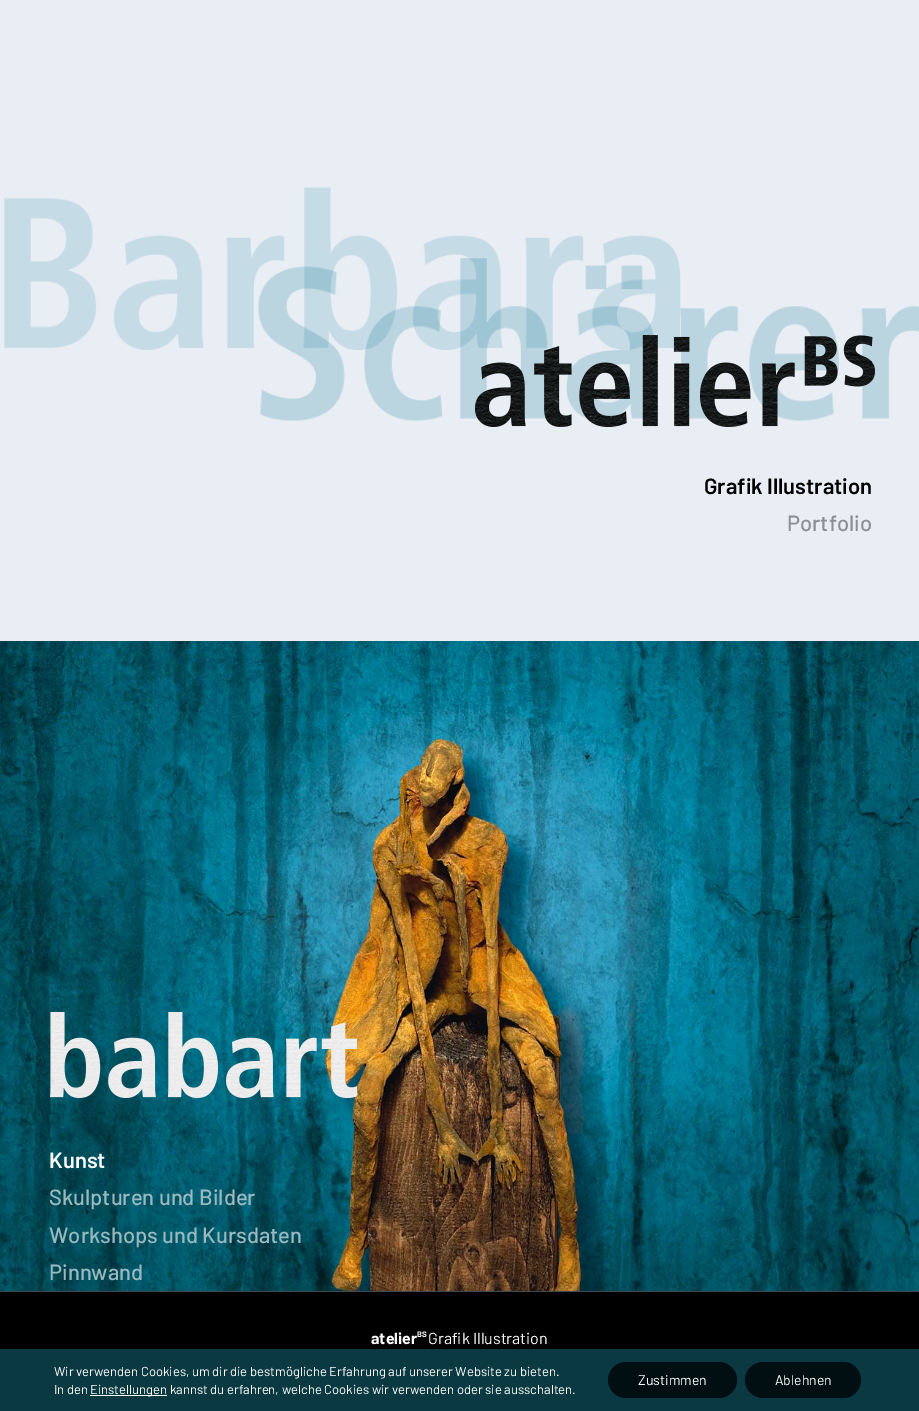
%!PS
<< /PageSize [919 1411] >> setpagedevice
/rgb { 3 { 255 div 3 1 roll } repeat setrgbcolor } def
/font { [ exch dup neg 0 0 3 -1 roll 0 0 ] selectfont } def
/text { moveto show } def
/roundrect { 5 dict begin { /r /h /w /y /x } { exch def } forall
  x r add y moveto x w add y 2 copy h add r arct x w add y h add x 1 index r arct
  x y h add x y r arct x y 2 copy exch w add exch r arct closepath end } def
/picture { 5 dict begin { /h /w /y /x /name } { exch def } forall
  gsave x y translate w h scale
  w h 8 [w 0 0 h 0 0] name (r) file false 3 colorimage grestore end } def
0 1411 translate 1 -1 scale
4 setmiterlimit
232 238 244 rgb
0 0 919 1411 rectfill
(img_01.rgb) 4 187 915 234 picture
(img_02.rgb) 475 335 400 92 picture
(img_03.rgb) 0 641 919 650 picture
(img_04.rgb) 50 1012 307 86 picture
0 0 0 rgb
0 1292 919 57 rectfill
62 74 82 rgb
0 1291 919 1 rectfill
11 57 65 rgb
0 1349 919 62 rectfill
255 255 255 rgb
90 1395 77 1 rectfill
2 15 18 rgb
608 1362 129 36 18 roundrect fill
745 1362 116 36 18 roundrect fill
/Barlow-SemiBold 22 font
0 0 0 rgb
(Grafik Illustration) 704 494 text
/Barlow-Medium 22 font
139 143 146 rgb
(Portfolio) 787 531 text
/Barlow-SemiBold 22 font
255 255 255 rgb
(Kunst) 49 1168 text
/Barlow-Medium 22 font
154 186 192 rgb
(Skulpturen und Bilder) 49 1205 text
(Workshops und Kursdaten) 49 1243 text
(Pinnwand) 49 1280 text
/Barlow-Bold 16 font
255 255 255 rgb
(atelier) 371 1344 text
/Barlow-Bold 8 font
(BS) 417 1337 text
/Barlow-Regular 16 font
(Grafik Illustration) 428 1344 text
/Barlow-Regular 13 font
(Wir verwenden Cookies, um dir die bestmögliche Erfahrung auf unserer Website zu bieten.) 54 1376 text
(In den) 54 1394 text
(Einstellungen kannst du erfahren, welche Cookies wir verwenden oder sie ausschalten.) 90 1394 text
/Barlow-Regular 14 font
(Zustimmen) 638 1385 text
(Ablehnen) 775 1385 text
showpage
